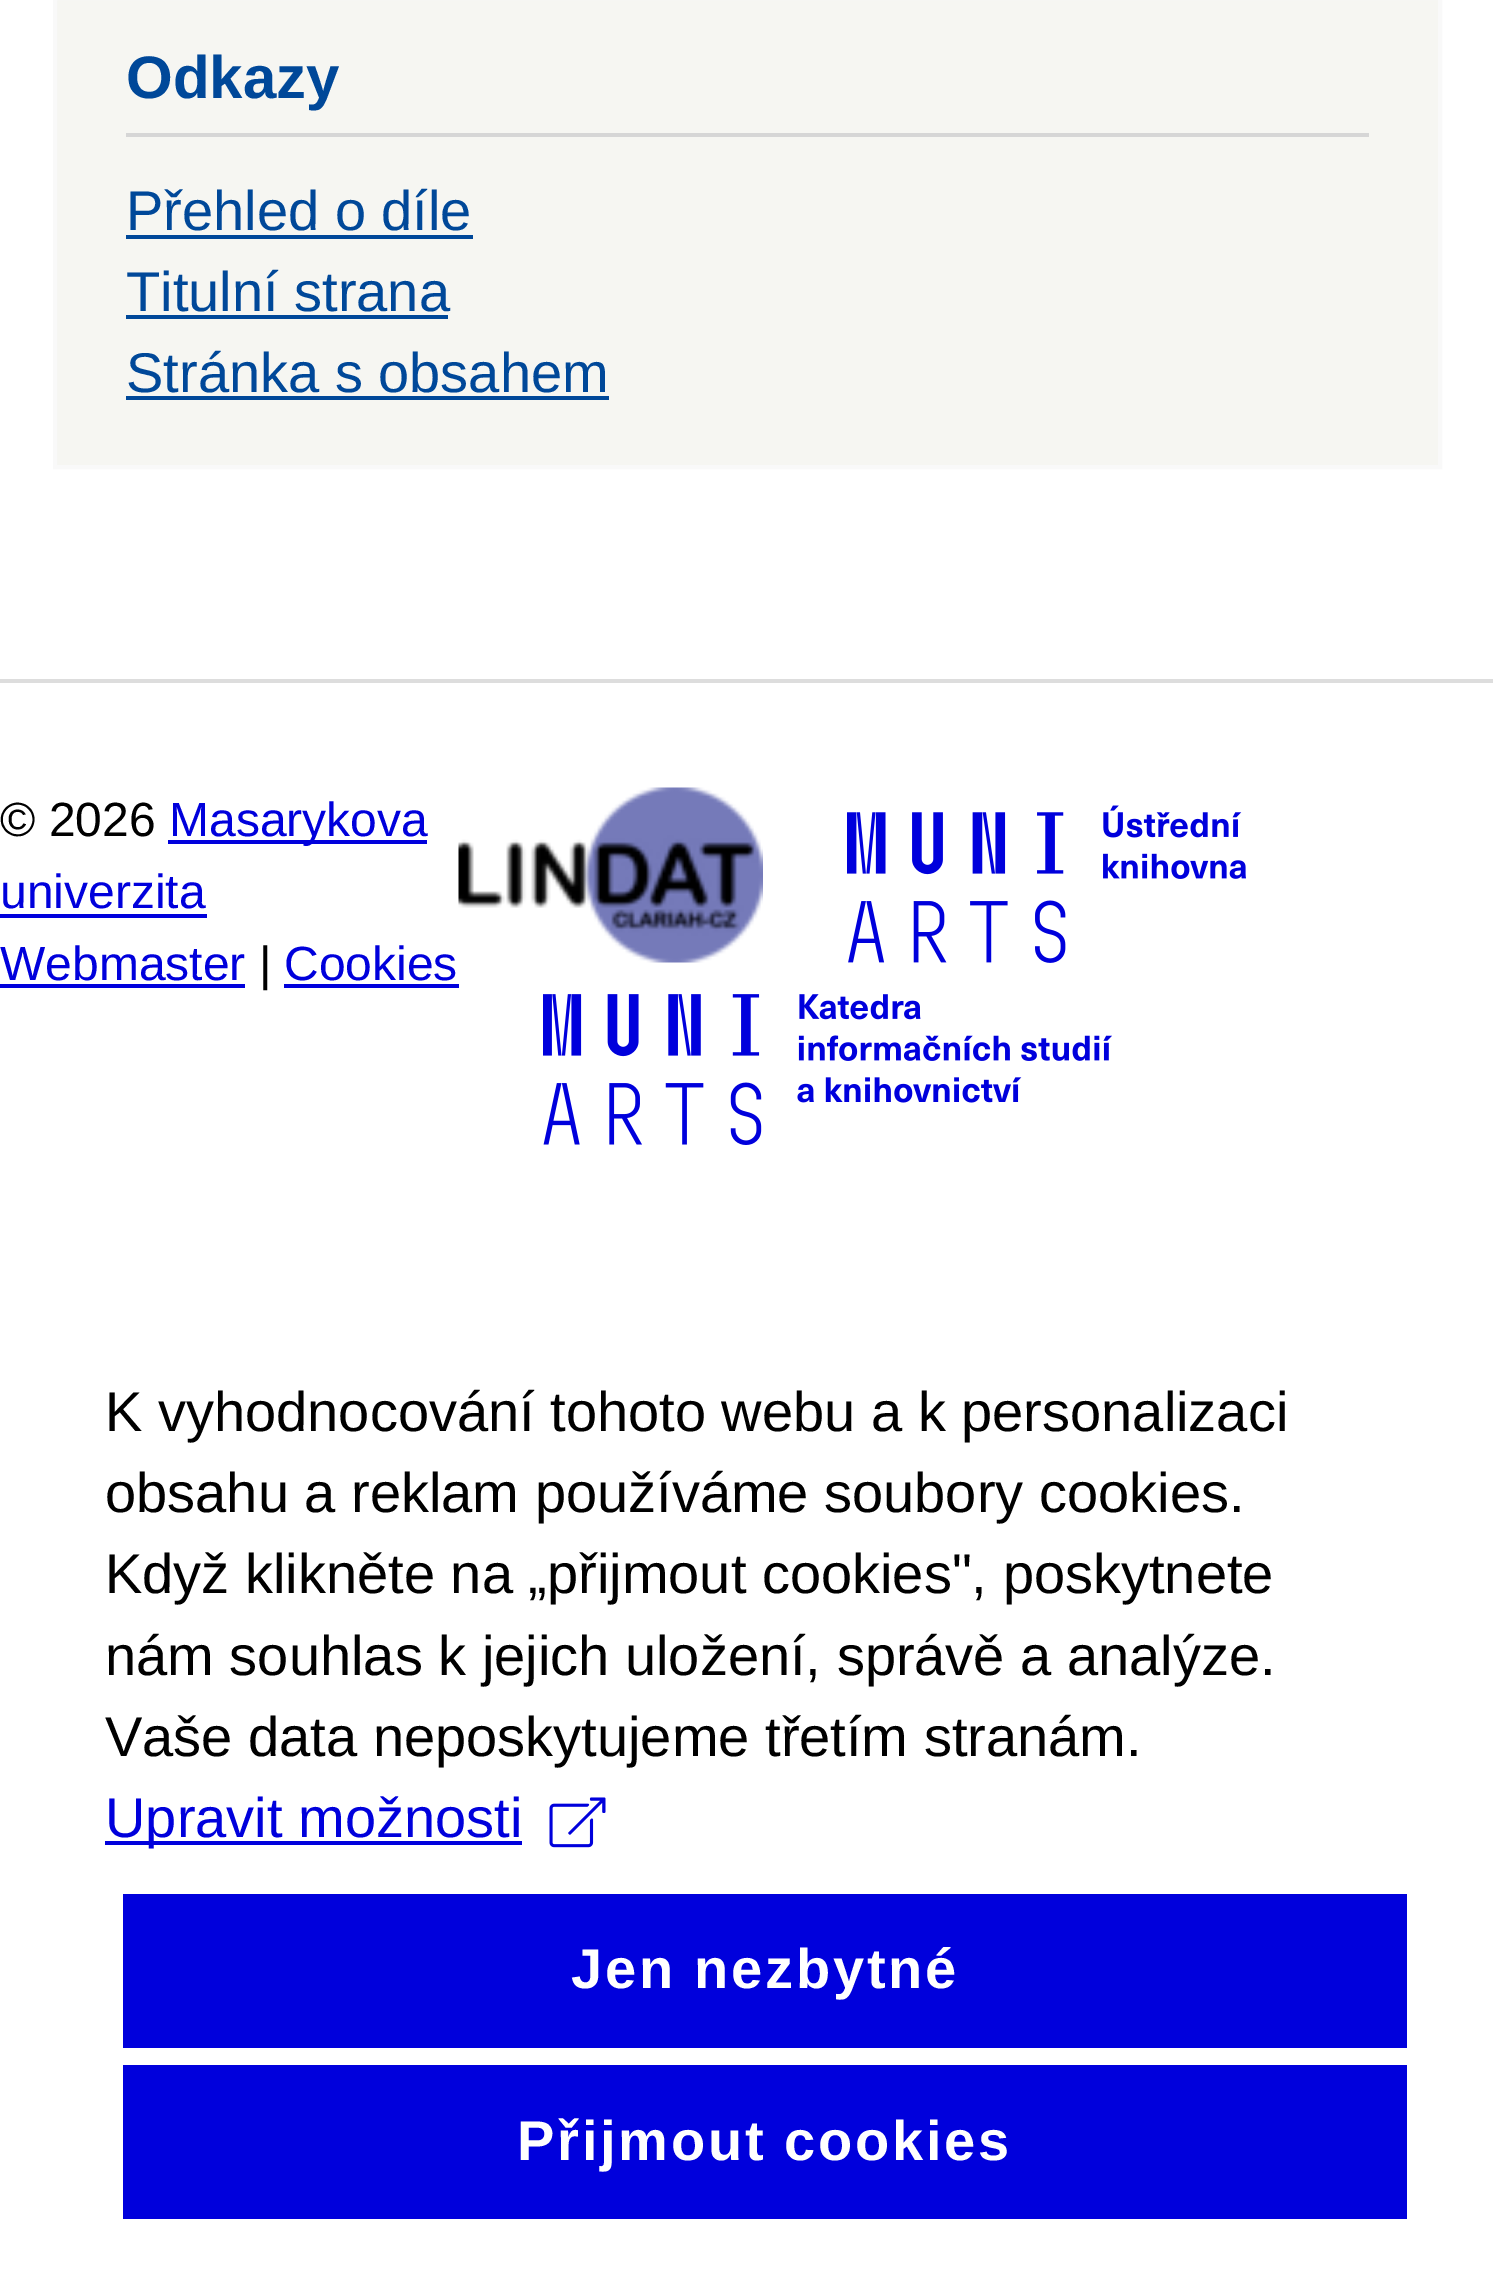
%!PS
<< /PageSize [1493 2269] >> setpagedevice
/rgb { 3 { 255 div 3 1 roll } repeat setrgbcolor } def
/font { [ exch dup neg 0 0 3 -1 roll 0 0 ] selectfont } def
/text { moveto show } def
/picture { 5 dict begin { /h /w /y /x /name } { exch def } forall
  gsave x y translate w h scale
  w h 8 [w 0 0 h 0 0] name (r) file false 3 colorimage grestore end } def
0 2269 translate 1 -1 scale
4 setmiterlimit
255 255 255 rgb
0 0 1493 2269 rectfill
221 221 221 rgb
0 679 1493 4 rectfill
246 246 242 rgb
55 -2 moveto 1385 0 rlineto 0 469 rlineto -1385 0 rlineto closepath gsave fill grestore
249 249 249 rgb
4 setlinewidth
stroke
214 214 214 rgb
126 133 1243 4 rectfill
0 72 153 rgb
126 235 347 4 rectfill
126 315 322 4 rectfill
126 396 483 4 rectfill
0 0 220 rgb
168 840 259 4 rectfill
0 914 207 4 rectfill
0 984 245 4 rectfill
284 984 175 4 rectfill
(img_01.rgb) 458 787 305 176 picture
(img_02.rgb) 847 805 399 158 picture
(img_03.rgb) 543 994 569 151 picture
105 1841 417 4 rectfill
(img_04.rgb) 549 1797 57 51 picture
123 1894 1284 154 rectfill
123 2065 1284 154 rectfill
/LiberationSans-Bold 60 font
0 72 153 rgb
(Odkazy) 126 98 text
/LiberationSans-Regular 56 font
(Přehled o díle) 126 230 text
(Titulní strana) 126 311 text
(Stránka s obsahem) 126 392 text
/LiberationSans-Regular 48 font
0 0 0 rgb
(© 2026) 0 836 text
0 0 220 rgb
(Masarykova) 169 836 text
(univerzita) 0 908 text
(Webmaster) 0 980 text
0 0 0 rgb
(|) 259 980 text
0 0 220 rgb
(Cookies) 284 980 text
/LiberationSans-Regular 56 font
0 0 0 rgb
(K vyhodnocování tohoto webu a k personalizaci) 105 1431 text
(obsahu a reklam používáme soubory cookies.) 105 1512 text
(Když klikněte na „přijmout cookies", poskytnete) 105 1593 text
(nám souhlas k jejich uložení, správě a analýze.) 105 1675 text
(Vaše data neposkytujeme třetím stranám.) 105 1756 text
0 0 220 rgb
(Upravit možnosti) 105 1837 text
/LiberationSans-Bold 56 font
255 255 255 rgb
571 1988 moveto 2.75 0 (Jen nezbytné) ashow
517 2160 moveto 2.75 0 (Přijmout cookies) ashow
showpage
